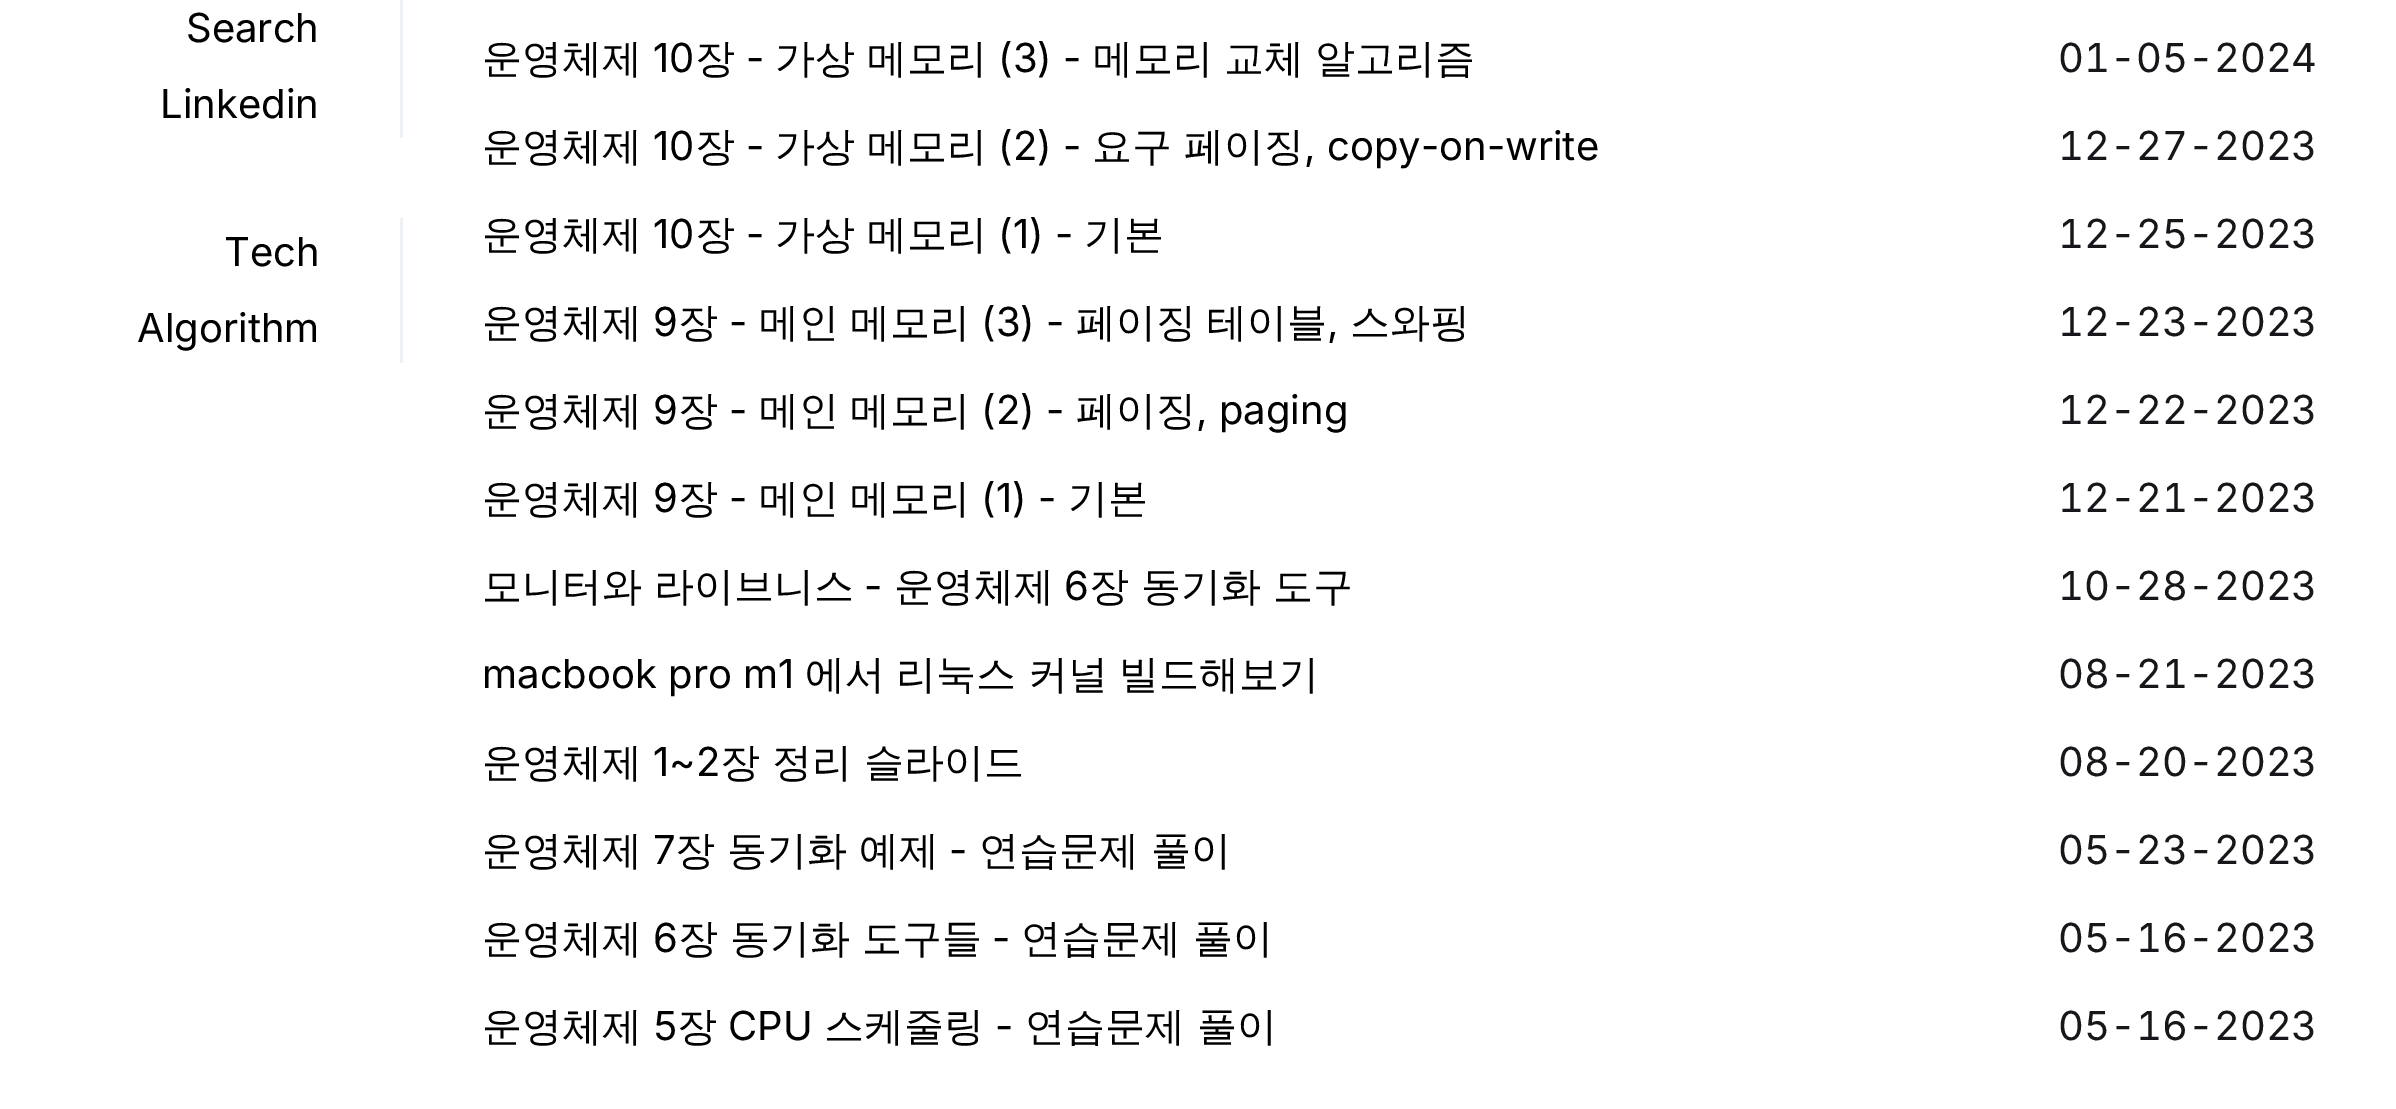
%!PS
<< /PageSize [2396 1109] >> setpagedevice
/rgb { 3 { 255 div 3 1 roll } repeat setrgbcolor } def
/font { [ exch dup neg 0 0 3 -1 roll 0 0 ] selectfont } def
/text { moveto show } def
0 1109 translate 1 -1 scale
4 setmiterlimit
255 255 255 rgb
0 0 2396 1109 rectfill
237 242 247 rgb
400 0 3 138 rectfill
400 218 3 145 rectfill
/Inter-Regular 40 font
0 0 0 rgb
(Search) 186 42 text
(Linkedin) 160 118 text
(Tech) 224 266 text
(Algorithm) 137 342 text
/WenQuanYiZenHei-Medium 40 font
(운영체제) 482 72 text
/Inter-Regular 40 font
(10) 653 72 text
/WenQuanYiZenHei-Medium 40 font
(장) 695 72 text
/Inter-Regular 40 font
(-) 746 72 text
/WenQuanYiZenHei-Medium 40 font
(가상) 775 72 text
(메모리) 867 72 text
/Inter-Regular 40 font
(\(3\) -) 998 72 text
/WenQuanYiZenHei-Medium 40 font
(메모리) 1093 72 text
(교체) 1224 72 text
(알고리즘) 1315 72 text
/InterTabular-Regular 40 font
22 23 26 rgb
(01-05-2024) 2058 72 text
/WenQuanYiZenHei-Medium 40 font
0 0 0 rgb
(운영체제) 482 160 text
/Inter-Regular 40 font
(10) 653 160 text
/WenQuanYiZenHei-Medium 40 font
(장) 695 160 text
/Inter-Regular 40 font
(-) 746 160 text
/WenQuanYiZenHei-Medium 40 font
(가상) 775 160 text
(메모리) 867 160 text
/Inter-Regular 40 font
(\(2\) -) 998 160 text
/WenQuanYiZenHei-Medium 40 font
(요구) 1092 160 text
(페이징) 1184 160 text
/Inter-Regular 40 font
(, copy-on-write) 1304 160 text
/InterTabular-Regular 40 font
22 23 26 rgb
(12-27-2023) 2058 160 text
/WenQuanYiZenHei-Medium 40 font
0 0 0 rgb
(운영체제) 482 248 text
/Inter-Regular 40 font
(10) 653 248 text
/WenQuanYiZenHei-Medium 40 font
(장) 695 248 text
/Inter-Regular 40 font
(-) 746 248 text
/WenQuanYiZenHei-Medium 40 font
(가상) 775 248 text
(메모리) 867 248 text
/Inter-Regular 40 font
(\(1\) -) 998 248 text
/WenQuanYiZenHei-Medium 40 font
(기본) 1084 248 text
/InterTabular-Regular 40 font
22 23 26 rgb
(12-25-2023) 2058 248 text
/WenQuanYiZenHei-Medium 40 font
0 0 0 rgb
(운영체제) 482 336 text
/Inter-Regular 40 font
(9) 653 336 text
/WenQuanYiZenHei-Medium 40 font
(장) 678 336 text
/Inter-Regular 40 font
(-) 729 336 text
/WenQuanYiZenHei-Medium 40 font
(메인) 759 336 text
(메모리) 850 336 text
/Inter-Regular 40 font
(\(3\) -) 981 336 text
/WenQuanYiZenHei-Medium 40 font
(페이징) 1076 336 text
(테이블) 1207 336 text
(스와핑) 1350 336 text
/Inter-Regular 40 font
(,) 1327 336 text
/InterTabular-Regular 40 font
22 23 26 rgb
(12-23-2023) 2058 336 text
/WenQuanYiZenHei-Medium 40 font
0 0 0 rgb
(운영체제) 482 424 text
/Inter-Regular 40 font
(9) 653 424 text
/WenQuanYiZenHei-Medium 40 font
(장) 678 424 text
/Inter-Regular 40 font
(-) 729 424 text
/WenQuanYiZenHei-Medium 40 font
(메인) 759 424 text
(메모리) 850 424 text
/Inter-Regular 40 font
(\(2\) -) 981 424 text
/WenQuanYiZenHei-Medium 40 font
(페이징) 1076 424 text
/Inter-Regular 40 font
(, paging) 1196 424 text
/InterTabular-Regular 40 font
22 23 26 rgb
(12-22-2023) 2058 424 text
/WenQuanYiZenHei-Medium 40 font
0 0 0 rgb
(운영체제) 482 512 text
/Inter-Regular 40 font
(9) 653 512 text
/WenQuanYiZenHei-Medium 40 font
(장) 678 512 text
/Inter-Regular 40 font
(-) 729 512 text
/WenQuanYiZenHei-Medium 40 font
(메인) 759 512 text
(메모리) 850 512 text
/Inter-Regular 40 font
(\(1\) -) 981 512 text
/WenQuanYiZenHei-Medium 40 font
(기본) 1068 512 text
/InterTabular-Regular 40 font
22 23 26 rgb
(12-21-2023) 2058 512 text
/WenQuanYiZenHei-Medium 40 font
0 0 0 rgb
(모니터와 라이브니스) 482 600 text
/Inter-Regular 40 font
(-) 864 600 text
/WenQuanYiZenHei-Medium 40 font
(운영체제) 894 600 text
/Inter-Regular 40 font
(6) 1064 600 text
/WenQuanYiZenHei-Medium 40 font
(장 동기화 도구) 1089 600 text
/InterTabular-Regular 40 font
22 23 26 rgb
(10-28-2023) 2058 600 text
/Inter-Regular 40 font
0 0 0 rgb
(macbook pro m1) 482 688 text
/WenQuanYiZenHei-Medium 40 font
(에서) 805 688 text
(리눅스) 896 688 text
(커널) 1028 688 text
(빌드해보기) 1119 688 text
/InterTabular-Regular 40 font
22 23 26 rgb
(08-21-2023) 2058 688 text
/WenQuanYiZenHei-Medium 40 font
0 0 0 rgb
(운영체제) 482 776 text
/Inter-Regular 40 font
(1~2) 653 776 text
/WenQuanYiZenHei-Medium 40 font
(장 정리 슬라이드) 720 776 text
/InterTabular-Regular 40 font
22 23 26 rgb
(08-20-2023) 2058 776 text
/WenQuanYiZenHei-Medium 40 font
0 0 0 rgb
(운영체제) 482 864 text
/Inter-Regular 40 font
(7) 653 864 text
/WenQuanYiZenHei-Medium 40 font
(장 동기화 예제) 675 864 text
/Inter-Regular 40 font
(-) 949 864 text
/WenQuanYiZenHei-Medium 40 font
(연습문제 풀이) 979 864 text
/InterTabular-Regular 40 font
22 23 26 rgb
(05-23-2023) 2058 864 text
/WenQuanYiZenHei-Medium 40 font
0 0 0 rgb
(운영체제) 482 952 text
/Inter-Regular 40 font
(6) 653 952 text
/WenQuanYiZenHei-Medium 40 font
(장 동기화 도구들) 678 952 text
/Inter-Regular 40 font
(-) 992 952 text
/WenQuanYiZenHei-Medium 40 font
(연습문제 풀이) 1021 952 text
/InterTabular-Regular 40 font
22 23 26 rgb
(05-16-2023) 2058 952 text
/WenQuanYiZenHei-Medium 40 font
0 0 0 rgb
(운영체제) 482 1040 text
/Inter-Regular 40 font
(5) 653 1040 text
/WenQuanYiZenHei-Medium 40 font
(장) 677 1040 text
/Inter-Regular 40 font
(CPU) 728 1040 text
/WenQuanYiZenHei-Medium 40 font
(스케줄링) 824 1040 text
/Inter-Regular 40 font
(-) 995 1040 text
/WenQuanYiZenHei-Medium 40 font
(연습문제 풀이) 1025 1040 text
/InterTabular-Regular 40 font
22 23 26 rgb
(05-16-2023) 2058 1040 text
showpage
